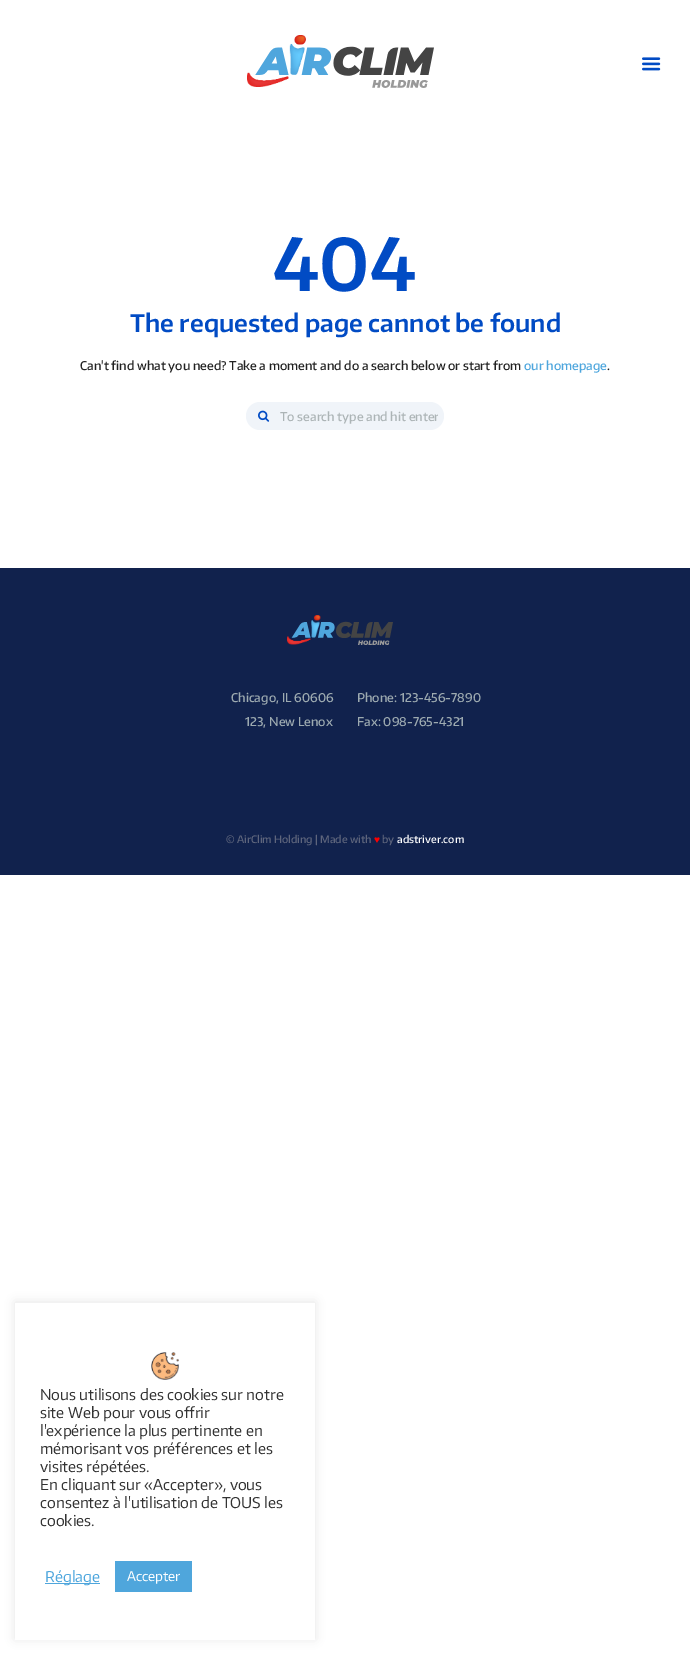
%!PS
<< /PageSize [690 1655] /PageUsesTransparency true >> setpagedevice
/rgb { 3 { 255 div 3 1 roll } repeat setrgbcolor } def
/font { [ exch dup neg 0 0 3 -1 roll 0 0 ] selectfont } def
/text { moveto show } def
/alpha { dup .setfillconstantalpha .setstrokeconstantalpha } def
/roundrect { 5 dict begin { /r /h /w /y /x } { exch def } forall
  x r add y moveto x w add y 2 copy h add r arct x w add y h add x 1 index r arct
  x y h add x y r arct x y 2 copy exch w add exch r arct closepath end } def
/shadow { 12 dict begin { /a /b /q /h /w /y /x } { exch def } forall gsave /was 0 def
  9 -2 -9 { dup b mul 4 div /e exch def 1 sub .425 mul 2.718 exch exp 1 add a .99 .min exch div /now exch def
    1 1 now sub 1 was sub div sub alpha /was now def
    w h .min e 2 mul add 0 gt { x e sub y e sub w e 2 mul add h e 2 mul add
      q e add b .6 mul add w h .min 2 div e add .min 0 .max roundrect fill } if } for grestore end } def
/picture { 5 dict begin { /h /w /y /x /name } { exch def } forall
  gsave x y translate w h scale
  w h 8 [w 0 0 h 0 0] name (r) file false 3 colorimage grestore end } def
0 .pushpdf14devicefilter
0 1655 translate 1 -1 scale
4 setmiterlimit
255 255 255 rgb
0 0 690 1655 rectfill
(img_01.rgb) 247 35 187 53 picture
(img_02.rgb) 642 57 19 14 picture
240 244 249 rgb
246 402 198 28 14 roundrect fill
(img_03.rgb) 258 410 12 12 picture
17 34 77 rgb
0 568 690 307 rectfill
(img_04.rgb) 287 615 106 30 picture
gsave
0 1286 moveto 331 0 rlineto 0 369 rlineto -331 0 rlineto closepath 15 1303 moveto 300 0 rlineto 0 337 rlineto -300 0 rlineto closepath eoclip newpath
172 171 171 rgb
15 1302 300 337 0 5 0.3 shadow
grestore
(img_05.rgb) 151 1352 28 28 picture
79 166 220 rgb
45 1583 55 1 rectfill
115 1561 77 31 rectfill
/EncodeSans-SemiBold 72 font
1 75 196 rgb
(404) 273 291 text
/EncodeSans-SemiBold 24 font
(The requested page cannot be found) 130 332 text
/EncodeSans-Medium 12 font
34 34 34 rgb
(Can't find what you need? Take a moment and do a search below or start from) 80 370 text
78 166 221 rgb
(our homepage) 524 370 text
34 34 34 rgb
(.) 607 370 text
gsave
280 409 158 15 rectclip
172 180 182 rgb
(To search type and hit enter) 280 421 text
grestore
157 170 176 rgb
(Chicago, IL 60606) 231 702 text
(123, New Lenox) 245 726 text
(Phone: 123-456-7890) 357 702 text
(Fax: 098-765-4321) 357 726 text
/EncodeSans-Medium 10.25 font
94 101 124 rgb
(© AirClim Holding | Made with) 226 843 text
/LiberationSerif-Regular 10.25 font
255 0 0 rgb
(♥) 374 843 text
/EncodeSans-Medium 10.25 font
94 101 124 rgb
(by) 382 843 text
255 255 255 rgb
(adstriver.com) 397 843 text
/EncodeSans-Regular 14.7 font
51 51 51 rgb
(Nous utilisons des cookies sur notre) 40 1400 text
(site Web pour vous offrir) 40 1418 text
(l'expérience la plus pertinente en) 40 1436 text
(mémorisant vos préférences et les) 40 1454 text
(visites répétées.) 40 1472 text
(En cliquant sur «Accepter», vous) 40 1490 text
(consentez à l'utilisation de TOUS les) 40 1508 text
(cookies.) 40 1526 text
78 166 221 rgb
(Réglage) 45 1582 text
/EncodeSans-Regular 13 font
255 255 255 rgb
(Accepter) 127 1581 text
.poppdf14devicefilter showpage
